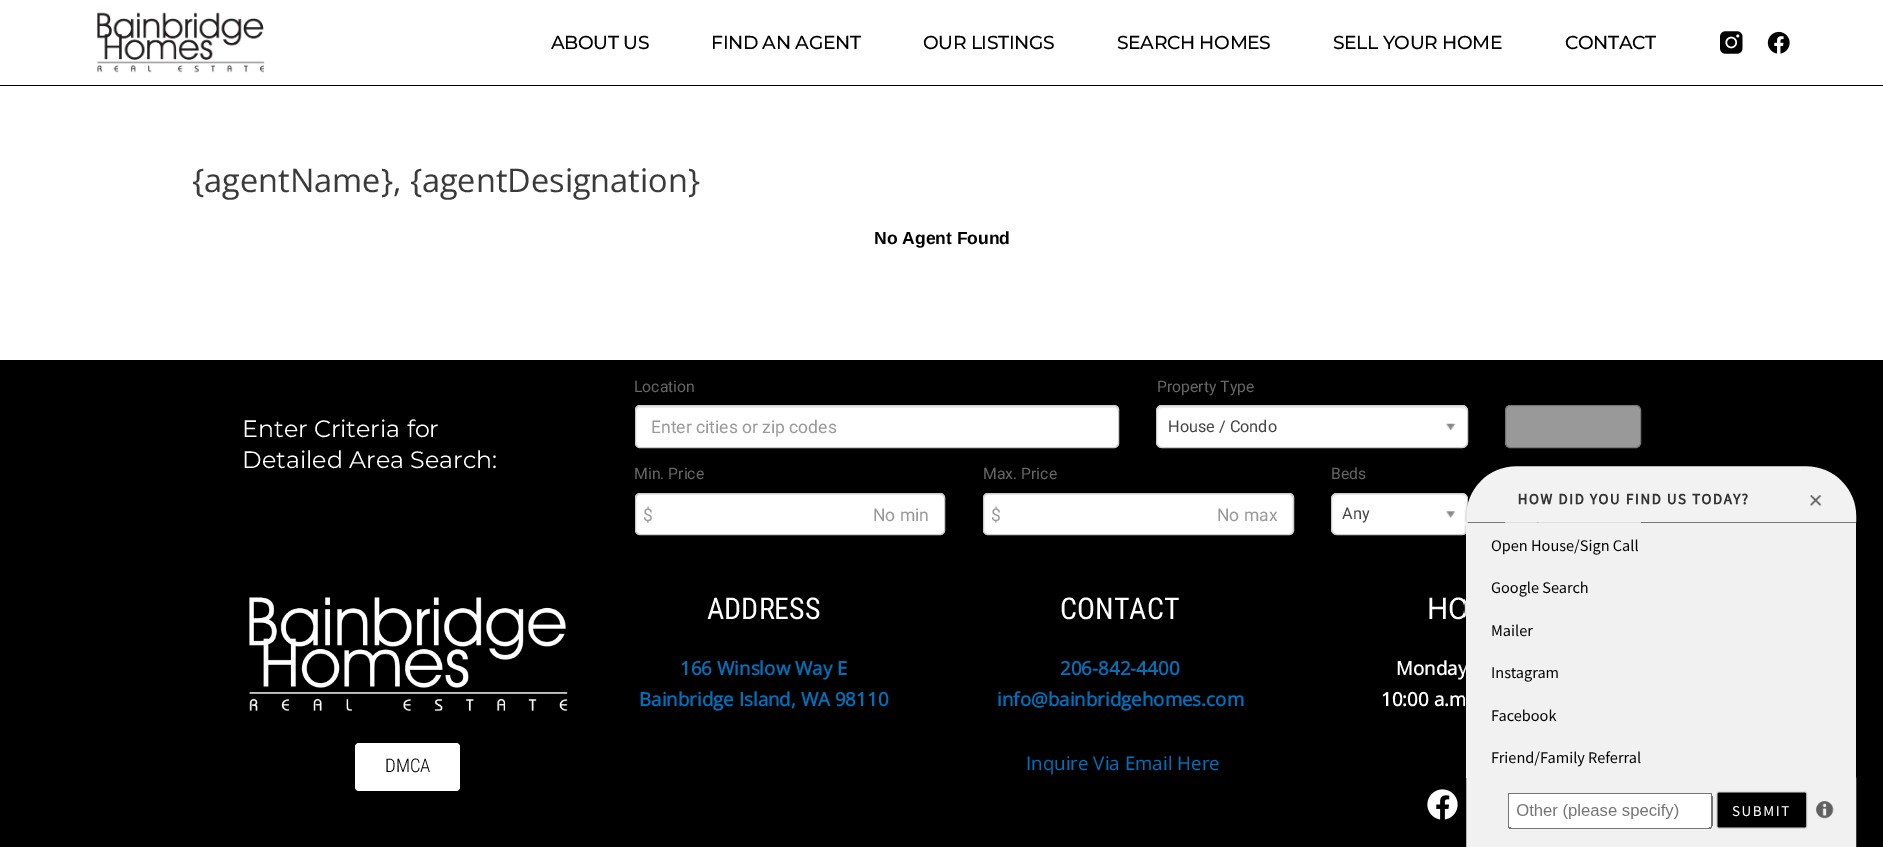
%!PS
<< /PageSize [1883 847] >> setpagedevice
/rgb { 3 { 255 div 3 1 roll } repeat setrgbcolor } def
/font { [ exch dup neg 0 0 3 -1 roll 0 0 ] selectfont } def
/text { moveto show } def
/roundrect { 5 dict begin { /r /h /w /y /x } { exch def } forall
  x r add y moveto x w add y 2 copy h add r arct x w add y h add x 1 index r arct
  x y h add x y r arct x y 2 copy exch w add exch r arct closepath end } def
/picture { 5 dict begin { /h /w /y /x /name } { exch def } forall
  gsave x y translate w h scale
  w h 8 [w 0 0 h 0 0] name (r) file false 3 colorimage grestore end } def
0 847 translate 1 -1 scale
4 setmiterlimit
255 255 255 rgb
0 0 1883 847 rectfill
0 0 0 rgb
0 85 1883 1 rectfill
(img_01.rgb) 97 12 168 61 picture
(img_02.rgb) 1720 31 23 23 picture
(img_03.rgb) 1767 31 23 23 picture
0 360 1883 487 rectfill
255 255 255 rgb
635 405 484 43 5 roundrect fill
236 236 236 rgb
640 408 moveto 474 0 rlineto 2 0 4 1 4 3 rcurveto 0 -3 -1 -5 -4 -5 rcurveto -474 0 rlineto -3 0 -4 2 -4 5 rcurveto 0 -2 2 -3 4 -3 rcurveto closepath fill
204 204 204 rgb
635.5 405.5 483 42 4.5 roundrect stroke
255 255 255 rgb
1156 405 312 43 6 roundrect fill
236 236 236 rgb
1162 408 moveto 299 0 rlineto 3 0 5 2 5 4 rcurveto 0 -3 -2 -6 -5 -6 rcurveto -298 0 rlineto -3 0 -5 3 -5 6 rcurveto 0 -2 2 -4 4 -4 rcurveto closepath fill
204 204 204 rgb
1156.5 405.5 311 42 5.5 roundrect stroke
(img_04.rgb) 1446 423 10 8 picture
153 153 153 rgb
1505.5 405.5 135 42 4.5 roundrect gsave fill grestore
119 119 119 rgb
stroke
255 255 255 rgb
635 493 310 42 5 roundrect fill
236 236 236 rgb
640 495 moveto 300 0 rlineto 2 0 4 2 4 4 rcurveto 0 -3 -1 -5 -4 -5 rcurveto -300 0 rlineto -3 1 rlineto -1 1 -1 3 -1 4 rcurveto 0 -2 2 -4 4 -4 rcurveto closepath fill
204 204 204 rgb
635.5 493.5 309 41 4.5 roundrect stroke
255 255 255 rgb
983 493 311 42 5 roundrect fill
236 236 236 rgb
988 495 moveto 301 0 rlineto 5 0 3 13 3 15 rcurveto 0 23 rlineto 0 -1 1 -2 1 -3 rcurveto 0 -32 rlineto 0 -2 -2 -4 -4 -4 rcurveto -301 0 rlineto -2 0 -4 2 -4 4 rcurveto 0 1 rlineto 0 -2 1 -4 4 -4 rcurveto closepath fill
204 204 204 rgb
983.5 493.5 310 41 4.5 roundrect stroke
255 255 255 rgb
1331 493 137 42 6 roundrect fill
236 236 236 rgb
1338 495 moveto 123 0 rlineto 3 0 5 2 5 5 rcurveto 0 -1 rlineto 0 -3 -2 -5 -5 -5 rcurveto -123 0 rlineto -2 0 -4 1 -4 3 rcurveto 1 -1 2 -2 4 -2 rcurveto closepath fill
204 204 204 rgb
1331.5 493.5 136 41 5.5 roundrect stroke
(img_05.rgb) 1446 511 10 8 picture
255 255 255 rgb
1506 522 134 1 rectfill
204 204 204 rgb
1505.5 493.5 135 41 rectstroke
(img_06.rgb) 1427 789 31 31 picture
(img_07.rgb) 249 597 319 114 picture
255 255 255 rgb
355 743 105 48 4 roundrect fill
/Montserrat-Medium 18.75 font
0 0 0 rgb
551 49 moveto -0.4 0 (ABOUT US) ashow
711 49 moveto -0.4 0 (FIND AN AGENT) ashow
923 49 moveto -0.4 0 (OUR LISTINGS) ashow
1117 49 moveto -0.4 0 (SEARCH HOMES) ashow
1333 49 moveto -0.4 0 (SELL YOUR HOME) ashow
1565 49 moveto -0.4 0 (CONTACT) ashow
/OpenSans-Regular 32.5 font
58 58 58 rgb
({agentName}, {agentDesignation}) 192 192 text
/LiberationSans-Bold 17.5 font
0 0 0 rgb
(No Agent Found) 874 244 text
/Montserrat-Regular 23.75 font
255 255 255 rgb
(Enter Criteria for) 242 437 text
(Detailed Area Search:) 242 468 text
/Roboto-Regular 15.75 font
102 102 102 rgb
(Location) 634 392 text
/Roboto-Regular 17.5 font
153 153 153 rgb
(Enter cities or zip codes) 651 433 text
/Roboto-Regular 15.75 font
102 102 102 rgb
(Property Type) 1157 392 text
/Roboto-Regular 16.25 font
68 68 68 rgb
(House / Condo) 1168 432 text
/Roboto-Regular 15.75 font
102 102 102 rgb
(Min. Price) 634 479 text
/Roboto-Regular 17.5 font
153 153 153 rgb
($) 643 521 text
(No min) 873 521 text
/Roboto-Regular 15.75 font
102 102 102 rgb
(Max. Price) 983 479 text
/Roboto-Regular 17.5 font
153 153 153 rgb
($) 991 521 text
(No max) 1217 521 text
/Roboto-Regular 15.75 font
102 102 102 rgb
(Beds) 1331 479 text
/Roboto-Regular 16.25 font
68 68 68 rgb
(Any) 1342 519 text
/RobotoCondensed-Regular 30 font
255 255 255 rgb
(ADDRESS) 707 619 text
/OpenSans-Bold 18.75 font
1 112 185 rgb
(166 Winslow Way E) 680 675 text
(Bainbridge Island, WA 98110) 639 706 text
/RobotoCondensed-Regular 30 font
255 255 255 rgb
(CONTACT) 1060 619 text
/OpenSans-Bold 18.75 font
1 112 185 rgb
(206-842-4400) 1060 675 text
(info@bainbridgehomes.com) 997 706 text
/OpenSans-Regular 18.75 font
(Inquire Via Email Here) 1026 770 text
/Roboto-Regular 30 font
255 255 255 rgb
(HO) 1427 619 text
/OpenSans-Bold 18.75 font
(Monday) 1396 675 text
(10:00 a.m) 1381 706 text
/RobotoCondensed-Light 18.75 font
0 0 0 rgb
(DMCA) 385 772 text
(img_08.rgb) 1464 466 393 381 picture
showpage
